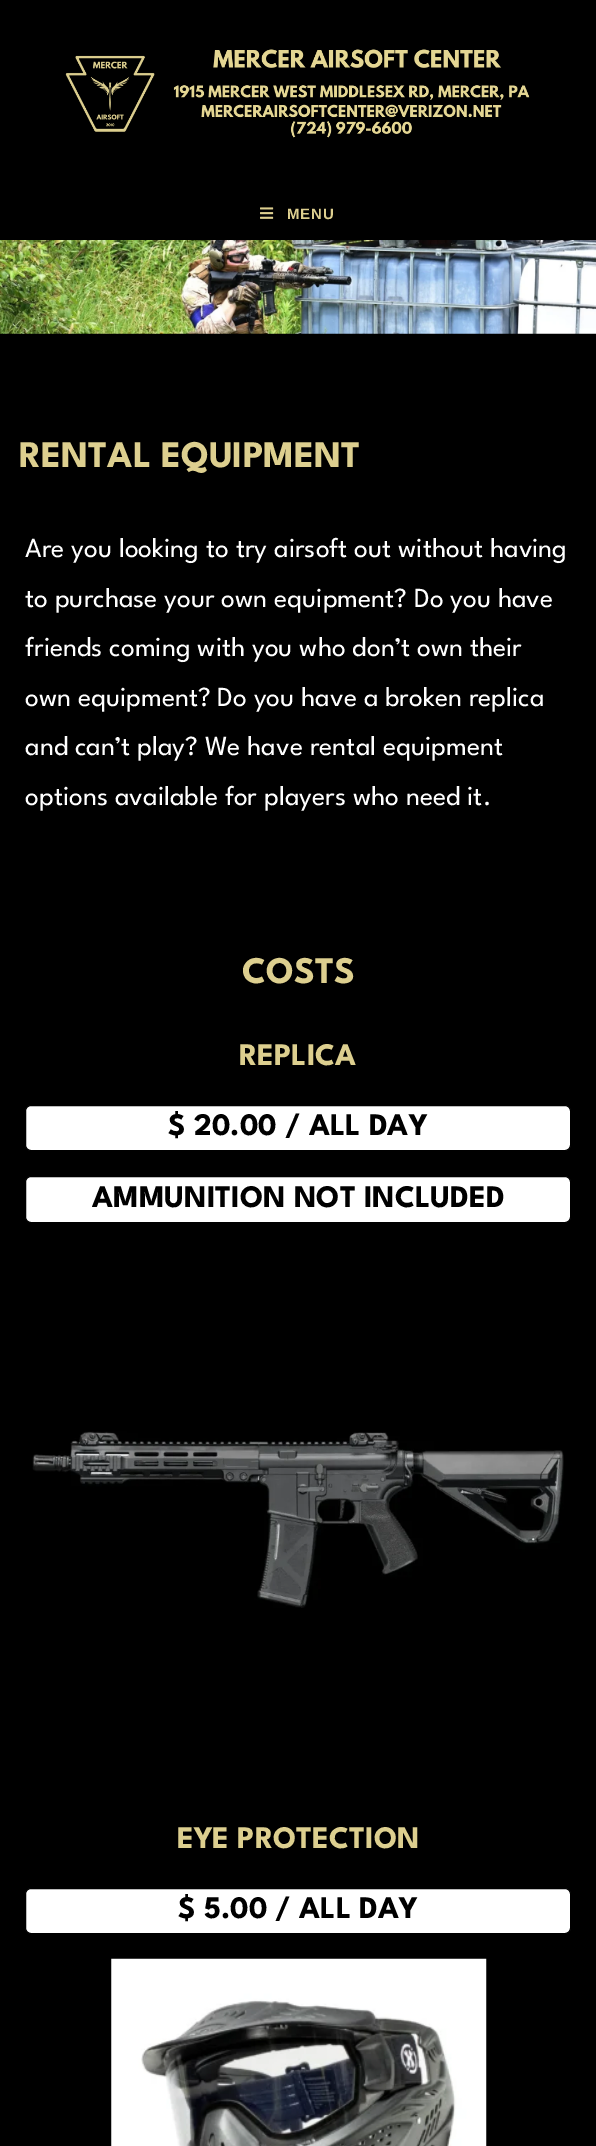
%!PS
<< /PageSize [596 2146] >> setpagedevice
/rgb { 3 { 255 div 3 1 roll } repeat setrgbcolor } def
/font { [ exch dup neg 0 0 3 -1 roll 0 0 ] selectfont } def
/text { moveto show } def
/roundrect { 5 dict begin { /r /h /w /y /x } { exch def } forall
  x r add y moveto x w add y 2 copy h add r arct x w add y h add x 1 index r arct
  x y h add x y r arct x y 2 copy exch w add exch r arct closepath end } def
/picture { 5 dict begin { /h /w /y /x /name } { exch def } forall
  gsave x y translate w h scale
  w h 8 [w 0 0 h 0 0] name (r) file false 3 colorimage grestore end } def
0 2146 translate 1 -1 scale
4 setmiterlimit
0 0 0 rgb
0 0 596 2146 rectfill
(img_01.rgb) 65 49 465 89 picture
(img_02.rgb) 260 207 14 12 picture
(img_03.rgb) 0 240 596 94 picture
255 255 255 rgb
25.5 1105.5 545 45 5.5 roundrect gsave fill grestore
0 0 0 rgb
stroke
255 255 255 rgb
25.5 1176.5 545 46 5.5 roundrect gsave fill grestore
0 0 0 rgb
stroke
(img_04.rgb) 32 1431 532 177 picture
255 255 255 rgb
25.5 1888.5 545 45 5.5 roundrect gsave fill grestore
0 0 0 rgb
stroke
(img_05.rgb) 111 1958 376 188 picture
/LiberationSans-Bold 15 font
221 207 143 rgb
287 219 moveto 1 0 (MENU) ashow
/LeagueSpartan-Bold 37.5 font
(RENTAL EQUIPMENT) 19 467 text
/LeagueSpartan-Regular 27.5 font
255 255 255 rgb
(Are you looking to try airsoft out without having) 25 557 text
(to purchase your own equipment? Do you have) 25 607 text
(friends coming with you who don’t own their) 25 656 text
(own equipment? Do you have a broken replica) 25 706 text
(and can’t play? We have rental equipment) 25 755 text
(options available for players who need it.) 25 805 text
/LeagueSpartan-Bold 37.5 font
221 207 143 rgb
(COSTS) 242 983 text
/LeagueSpartan-Bold 31.25 font
(REPLICA) 239 1065 text
0 0 0 rgb
($ 20.00 / ALL DAY) 168 1135 text
(AMMUNITION NOT INCLUDED) 92 1207 text
221 207 143 rgb
(EYE PROTECTION) 177 1848 text
0 0 0 rgb
($ 5.00 / ALL DAY) 178 1918 text
showpage
